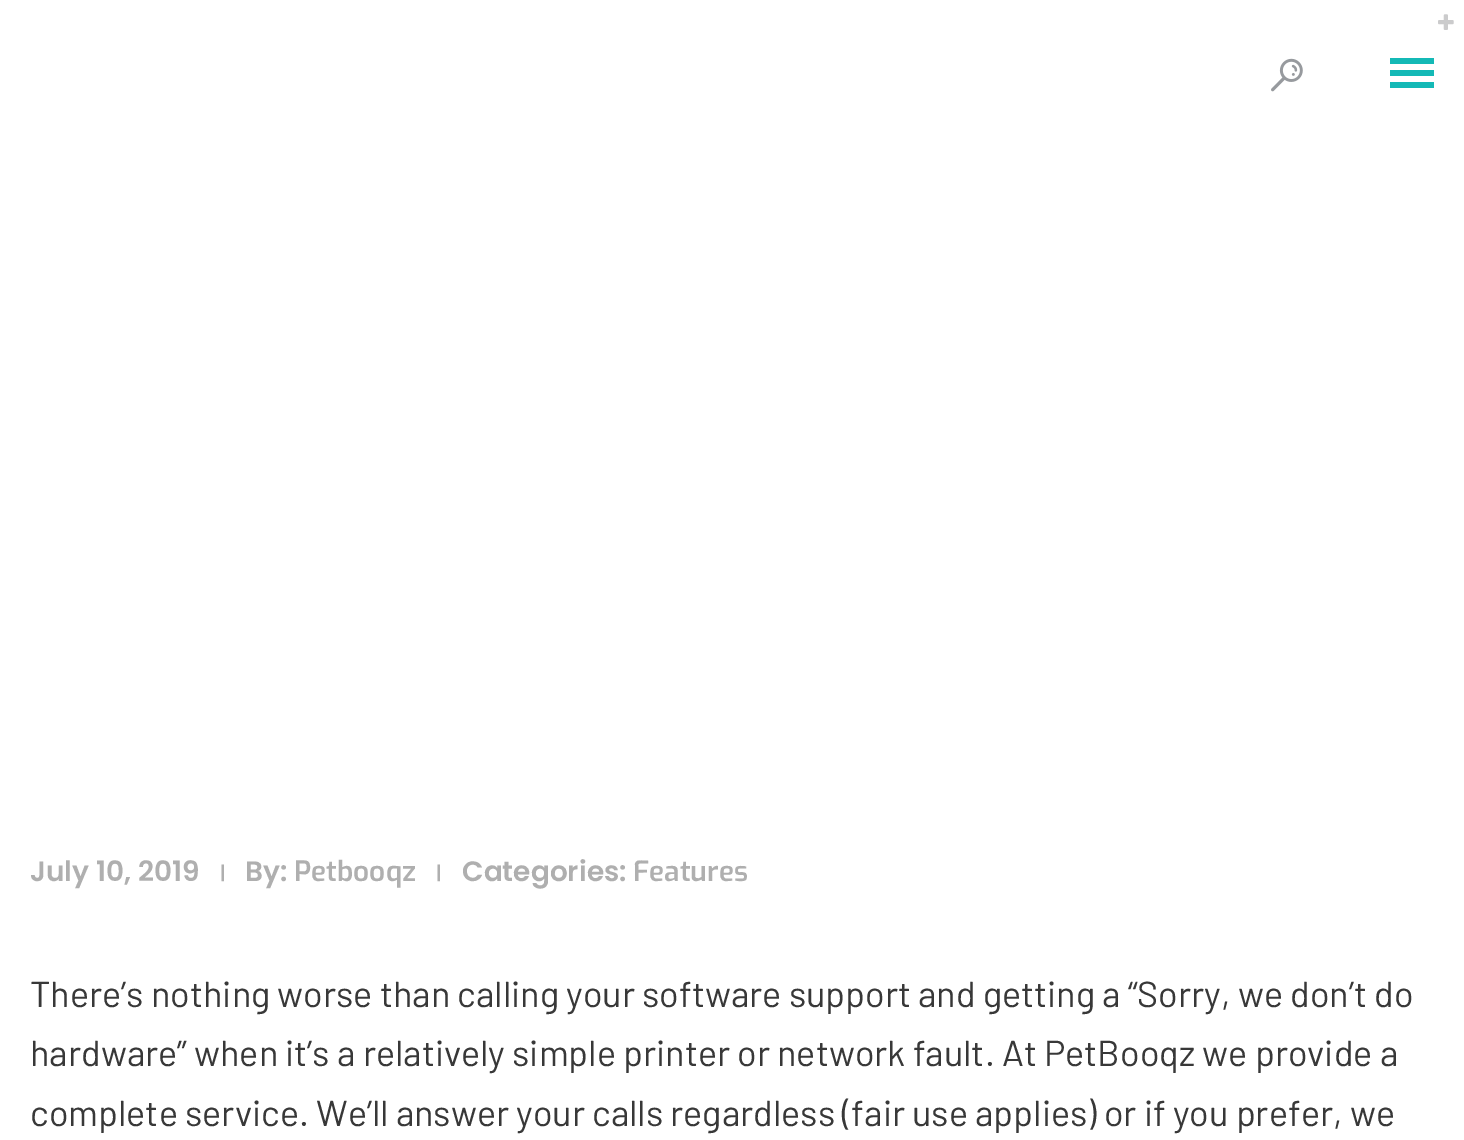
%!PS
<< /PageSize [1464 1140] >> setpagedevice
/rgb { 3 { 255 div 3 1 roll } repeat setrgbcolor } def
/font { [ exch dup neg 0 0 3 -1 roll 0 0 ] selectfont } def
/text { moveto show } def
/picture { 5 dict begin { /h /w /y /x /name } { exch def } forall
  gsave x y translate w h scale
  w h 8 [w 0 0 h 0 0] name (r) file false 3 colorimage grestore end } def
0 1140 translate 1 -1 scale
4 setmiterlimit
255 255 255 rgb
0 0 1464 1140 rectfill
(img_01.rgb) 1438 14 16 16 picture
(img_02.rgb) 1271 58 32 34 picture
20 185 182 rgb
1390 82 44 6 rectfill
1390 70 44 6 rectfill
1390 58 44 6 rectfill
/Poppins-SemiBold 28 font
175 175 175 rgb
(July 10, 2019) 30 881 text
/Poppins-SemiBold 18 font
(|) 220 879 text
/Poppins-SemiBold 28 font
(By:) 245 881 text
/Exo-SemiBold 28 font
(Petbooqz) 294 881 text
/Poppins-SemiBold 18 font
(|) 436 879 text
/Poppins-SemiBold 28 font
(Categories:) 462 881 text
/Exo-SemiBold 28 font
(Features) 633 881 text
/Barlow-Regular 36 font
56 56 56 rgb
(There’s nothing worse than calling your software support and getting a “Sorry, we don’t do) 30 1007 text
(hardware” when it’s a relatively simple printer or network fault. At PetBooqz we provide a) 30 1066 text
(complete service. We’ll answer your calls regardless \(fair use applies\) or if you prefer, we) 30 1126 text
showpage
